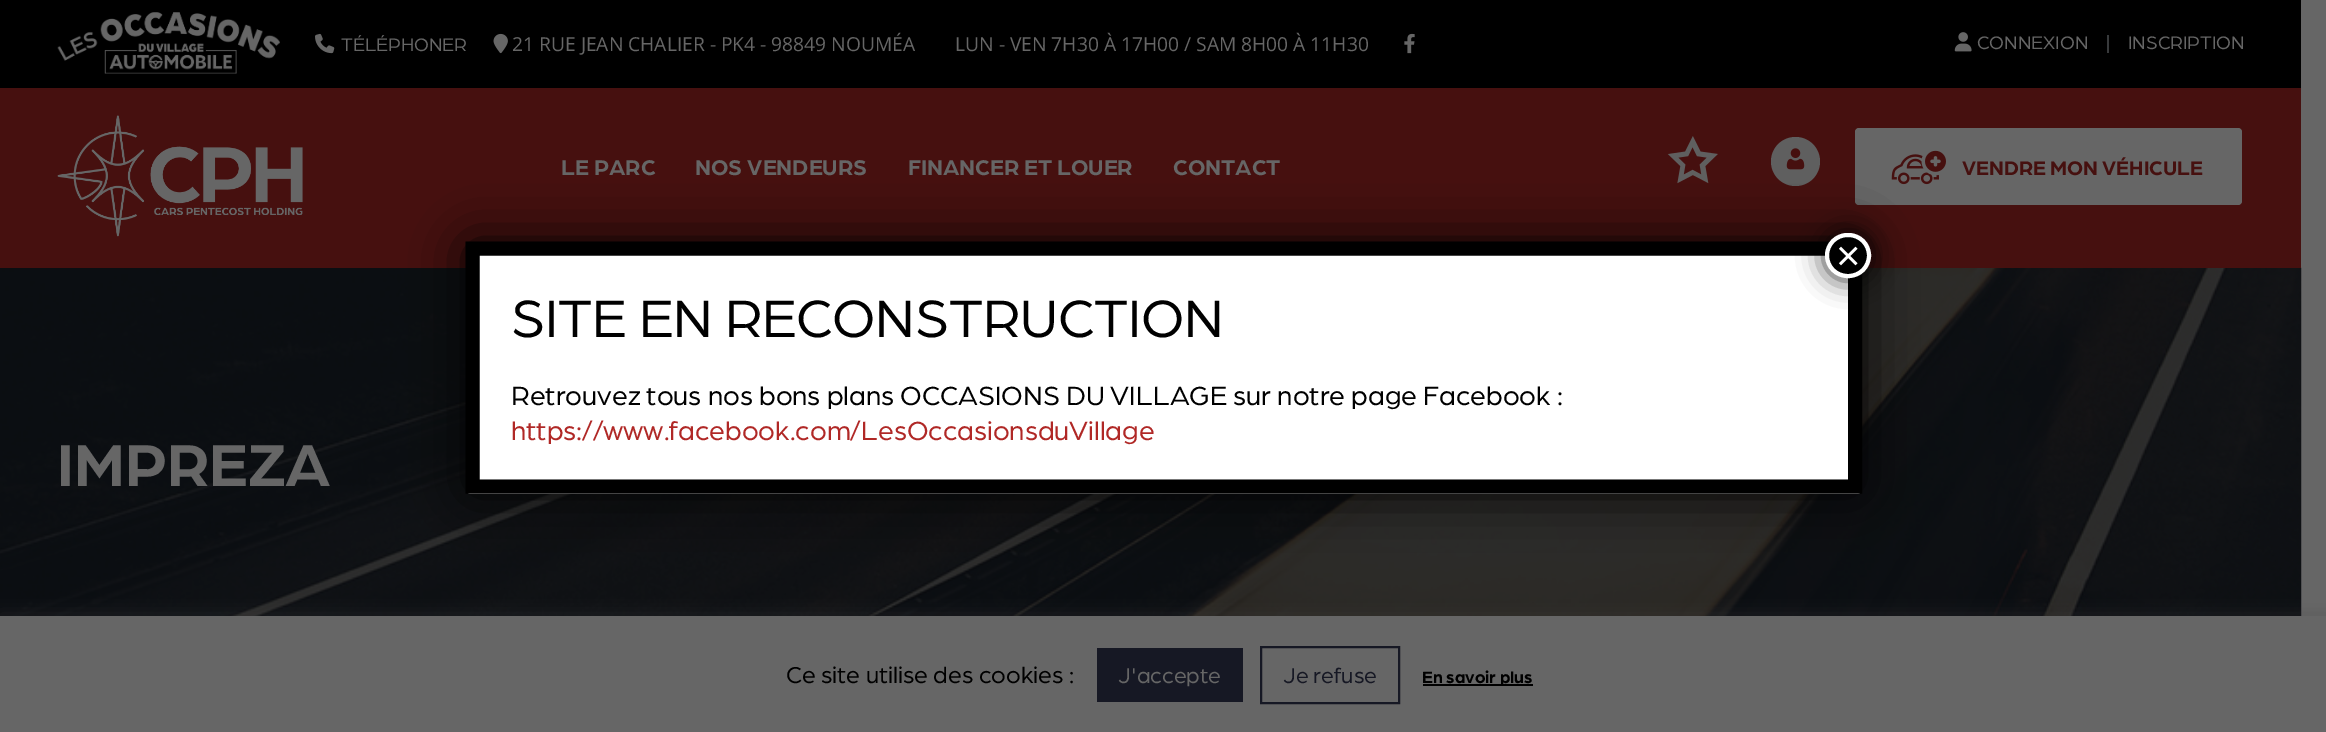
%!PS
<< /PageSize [2326 732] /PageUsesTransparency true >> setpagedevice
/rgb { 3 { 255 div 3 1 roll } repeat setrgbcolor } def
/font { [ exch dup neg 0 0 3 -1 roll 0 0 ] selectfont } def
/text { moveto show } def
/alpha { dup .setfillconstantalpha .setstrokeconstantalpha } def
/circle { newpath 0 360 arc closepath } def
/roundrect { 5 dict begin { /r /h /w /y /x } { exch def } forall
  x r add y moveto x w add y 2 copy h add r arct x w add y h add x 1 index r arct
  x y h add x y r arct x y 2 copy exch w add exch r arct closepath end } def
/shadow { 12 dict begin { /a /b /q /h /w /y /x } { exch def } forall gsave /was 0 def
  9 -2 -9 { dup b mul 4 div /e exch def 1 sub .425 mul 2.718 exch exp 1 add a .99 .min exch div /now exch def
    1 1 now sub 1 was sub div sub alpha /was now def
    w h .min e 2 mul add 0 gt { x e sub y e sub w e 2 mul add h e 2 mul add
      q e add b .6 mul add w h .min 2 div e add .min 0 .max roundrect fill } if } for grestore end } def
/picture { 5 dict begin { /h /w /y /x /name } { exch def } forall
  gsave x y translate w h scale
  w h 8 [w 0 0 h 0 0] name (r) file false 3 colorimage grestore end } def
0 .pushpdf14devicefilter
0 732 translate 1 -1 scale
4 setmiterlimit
102 102 102 rgb
0 0 2326 732 rectfill
0 0 0 rgb
0 0 2301 88 rectfill
(img_01.rgb) 57 12 223 62 picture
(img_02.rgb) 315 33 20 21 picture
(img_03.rgb) 493 33 15 21 picture
(img_04.rgb) 1404 33 11 21 picture
(img_05.rgb) 1954 32 18 20 picture
56 58 60 rgb
2107 35 2 18 rectfill
(img_10.rgb) 0 267 2302 349 picture
70 16 15 rgb
0 88 2301 180 rectfill
(img_06.rgb) 57 115 246 122 picture
(img_07.rgb) 1667 136 51 48 picture
95 95 95 rgb
1795.5 161.5 24.5 circle fill
(img_08.rgb) 1786 148 19 22 picture
102 102 102 rgb
1855 128 387 77 4 roundrect fill
(img_09.rgb) 1891 150 55 35 picture
2 2 2 rgb
466 242 1396 252 5 26 1 shadow
255 255 255 rgb
466 242 1396 252 5 roundrect fill
0 0 0 rgb
14 setlinewidth
472.5 248.5 moveto 1382.5 0 rlineto 0 238 rlineto -1382.5 0 rlineto closepath stroke
2 2 2 rgb
1824 231 49 49 24.5 13 0.75 shadow
0 0 0 rgb
1827 235 42 41 20.5 roundrect gsave fill grestore
255 255 255 rgb
4 setlinewidth
stroke
69 68 68 rgb
0 614 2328 118 0 9 0.3 shadow
102 102 102 rgb
0 616 2326 116 rectfill
22 24 36 rgb
1097 648 146 54 rectfill
2 setlinewidth
1261 647 138 56 rectstroke
0 0 0 rgb
1423 684 110 2 rectfill
/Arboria-Regular 19.25 font
102 102 102 rgb
(TÉLÉPHONER) 341 51 text
/OpenSans-Regular 19.25 font
(21 RUE JEAN CHALIER - PK4 - 98849 NOUMÉA) 512 51 text
(LUN - VEN 7H30 À 17H00 / SAM 8H00 À 11H30) 955 51 text
/Arboria-Regular 19.25 font
(CONNEXION) 1977 49 text
(INSCRIPTION) 2128 49 text
/Arboria-Bold 22.75 font
(LE PARC) 561 175 text
(NOS VENDEURS) 695 175 text
(FINANCER ET LOUER) 908 175 text
(CONTACT) 1173 175 text
/Arboria-Bold 21 font
70 16 15 rgb
(VENDRE MON VÉHICULE) 1962 175 text
/Arboria-Bold 63 font
102 102 102 rgb
(IMPREZA) 57 486 text
/LiberationSans-Regular 42 font
255 255 255 rgb
(×) 1836 270 text
/Arboria-Regular 56 font
0 0 0 rgb
(SITE EN RECONSTRUCTION) 511 337 text
/Arboria-Regular 28 font
(Retrouvez tous nos bons plans OCCASIONS DU VILLAGE sur notre page Facebook :) 511 405 text
176 40 38 rgb
(https://www.facebook.com/LesOccasionsduVillage) 511 440 text
/Arboria-Regular 24.5 font
0 0 0 rgb
(Ce site utilise des cookies :) 786 683 text
/Arboria-Regular 22.75 font
102 102 102 rgb
(J'accepte) 1118 683 text
22 24 36 rgb
(Je refuse) 1283 683 text
/Arboria-Bold 17.5 font
0 0 0 rgb
(En savoir plus) 1422 683 text
.poppdf14devicefilter showpage
